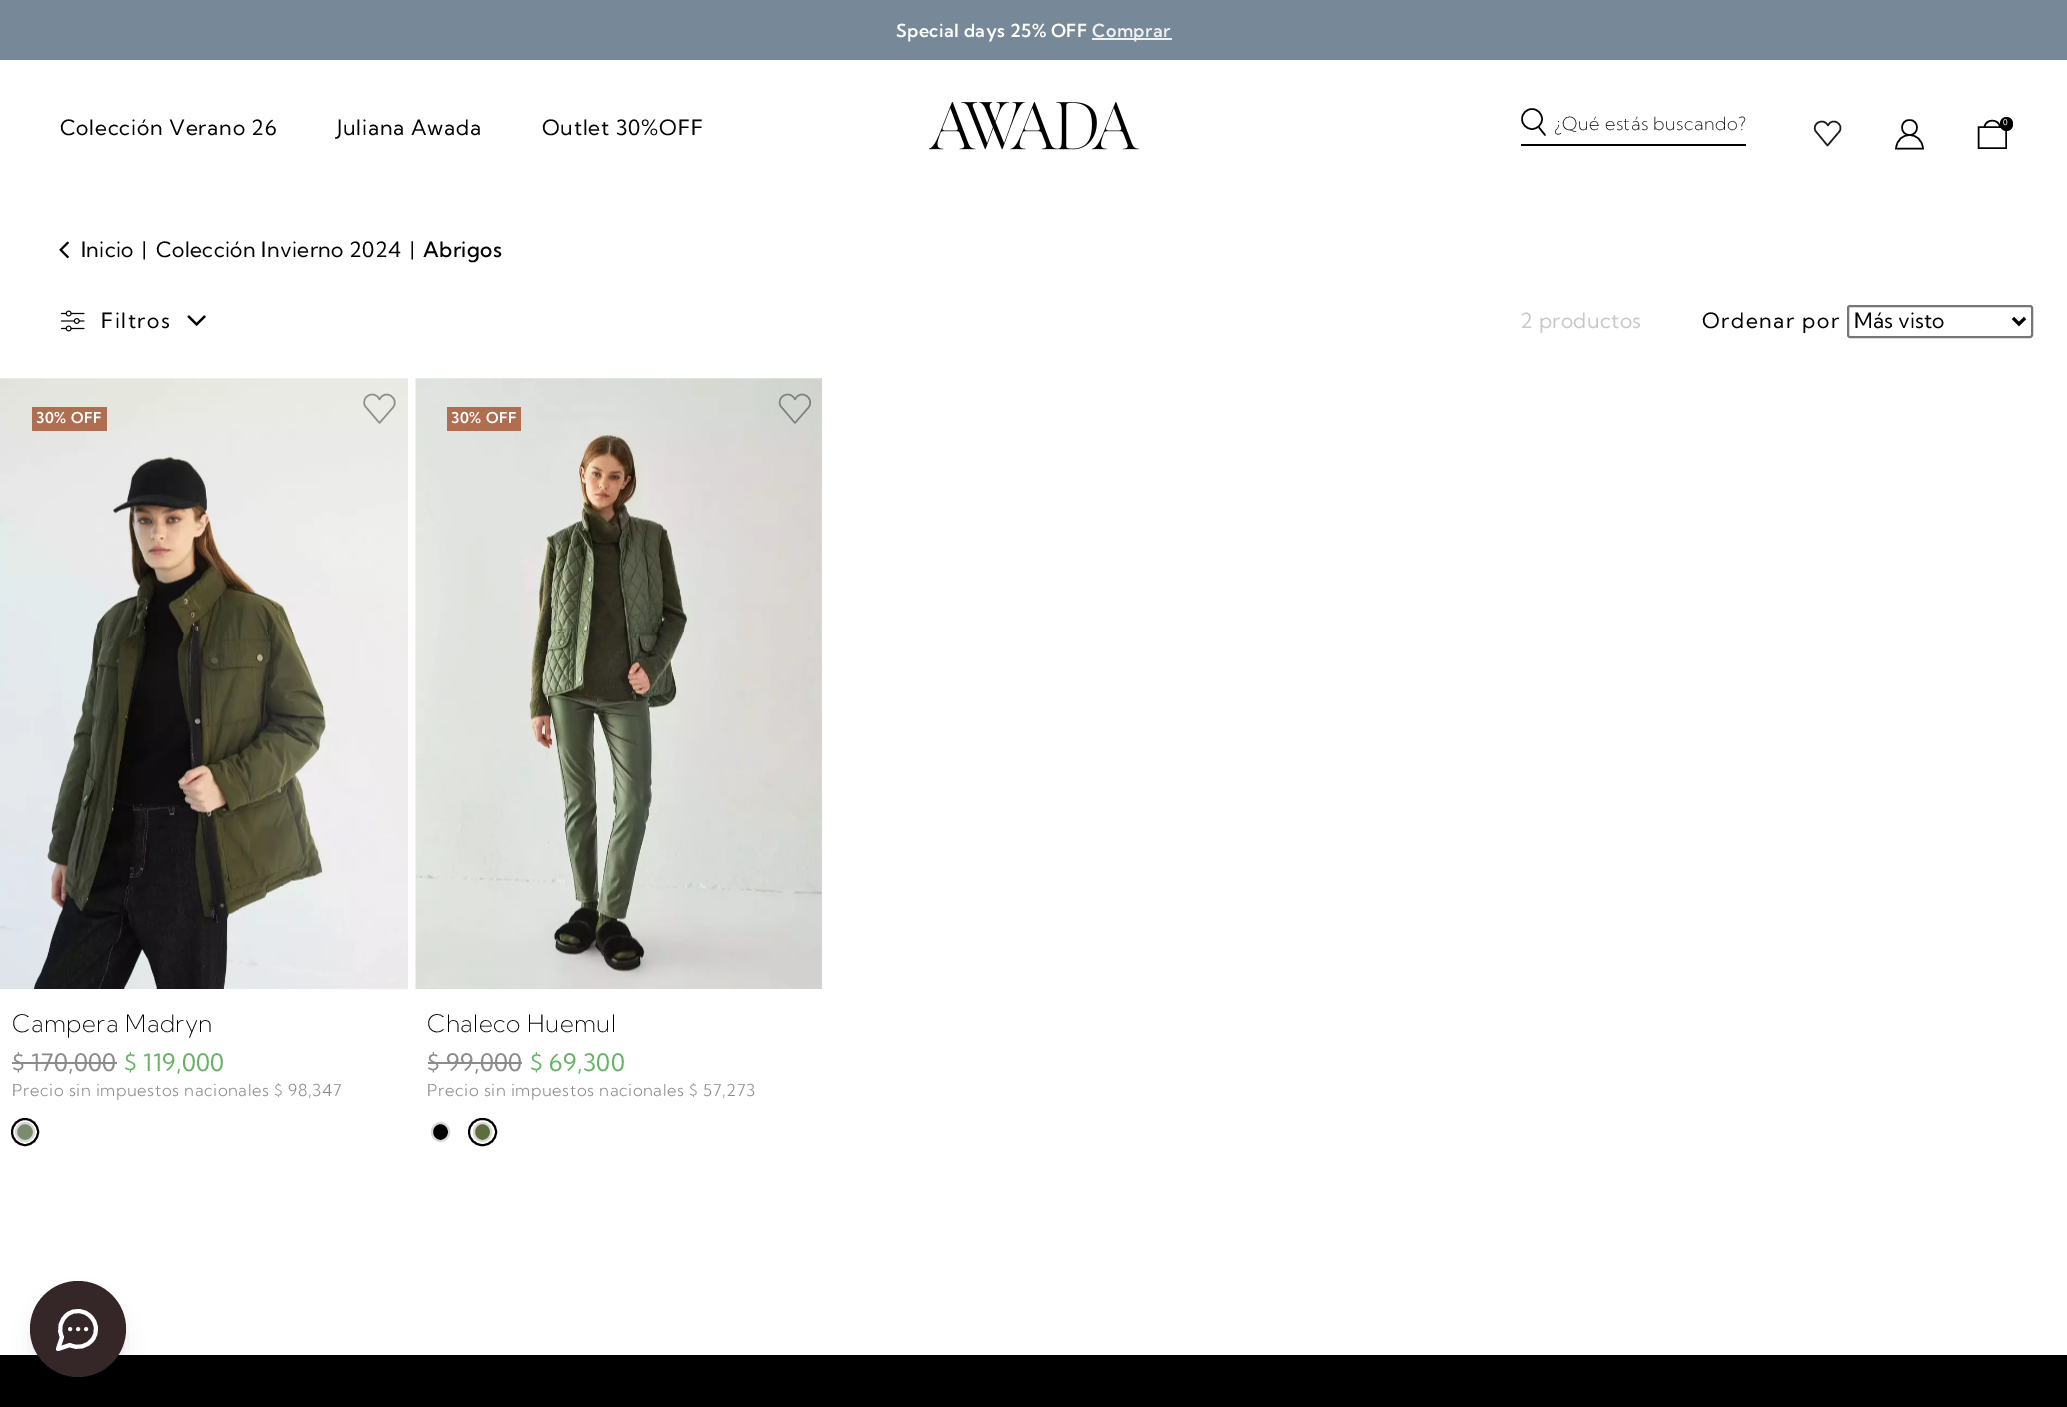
%!PS
<< /PageSize [2067 1407] /PageUsesTransparency true >> setpagedevice
/rgb { 3 { 255 div 3 1 roll } repeat setrgbcolor } def
/font { [ exch dup neg 0 0 3 -1 roll 0 0 ] selectfont } def
/text { moveto show } def
/alpha { dup .setfillconstantalpha .setstrokeconstantalpha } def
/circle { newpath 0 360 arc closepath } def
/roundrect { 5 dict begin { /r /h /w /y /x } { exch def } forall
  x r add y moveto x w add y 2 copy h add r arct x w add y h add x 1 index r arct
  x y h add x y r arct x y 2 copy exch w add exch r arct closepath end } def
/shadow { 12 dict begin { /a /b /q /h /w /y /x } { exch def } forall gsave /was 0 def
  9 -2 -9 { dup b mul 4 div /e exch def 1 sub .425 mul 2.718 exch exp 1 add a .99 .min exch div /now exch def
    1 1 now sub 1 was sub div sub alpha /was now def
    w h .min e 2 mul add 0 gt { x e sub y e sub w e 2 mul add h e 2 mul add
      q e add b .6 mul add w h .min 2 div e add .min 0 .max roundrect fill } if } for grestore end } def
/picture { 5 dict begin { /h /w /y /x /name } { exch def } forall
  gsave x y translate w h scale
  w h 8 [w 0 0 h 0 0] name (r) file false 3 colorimage grestore end } def
0 .pushpdf14devicefilter
0 1407 translate 1 -1 scale
4 setmiterlimit
255 255 255 rgb
0 0 2067 1407 rectfill
119 137 152 rgb
0 0 2067 60 rectfill
240 240 240 rgb
1092 38 80 2 rectfill
(img_01.rgb) 929 102 210 48 picture
0 0 0 rgb
1521 144 225 2 rectfill
1.5 setlinewidth
1532 119 10 circle stroke
1 setlinecap
1545 135 moveto -6 -7.5 rlineto stroke
27 27 27 rgb
1 setlinejoin
1839 132 moveto 6 -7 -6.5 -16 -11 -6.5 rcurveto -4.5 -8.5 -16.5 -2 -12.5 5.5 rcurveto 12 14.5 rlineto closepath stroke
0 0 0 rgb
0 setlinecap
0 setlinejoin
1909.5 135 moveto 10 0 10 -15 0 -15 rcurveto -10 0 -10 15 0 15 rcurveto closepath 1923 148.5 moveto -1.5 -18 -25.5 -18 -27 0 rcurveto closepath stroke
2006 127 moveto -27.5 0 rlineto 0 21 rlineto 27.5 0 rlineto closepath 1984.5 127 moveto 1 -8.5 14.5 -8.5 15.5 0 rcurveto stroke
2000 117 13 14 6.5 roundrect fill
(img_02.rgb) 59 241 10 18 picture
(img_03.rgb) 60 310 25 22 picture
(img_04.rgb) 187 315 19 11 picture
118 118 118 rgb
2 setlinewidth
1848 306 184 31 2 roundrect stroke
0 0 0 rgb
3 setlinewidth
2013 318 moveto 6 6 rlineto 6 -6 rlineto stroke
(img_05.rgb) 0 378 408 611 picture
175 110 79 rgb
32 407 75 24 rectfill
0.4 alpha
0 0 0 rgb
1.4 setlinewidth
1 setlinecap
1 setlinejoin
393 407.5 moveto 7 -9 -8 -19.5 -13.5 -8 rcurveto -5 -10.5 -19 -3 -14.5 6.5 rcurveto 14.5 17 rlineto closepath stroke
1 alpha
139 139 139 rgb
12 1062 105 2 rectfill
122 139 112 rgb
25 1132 9 circle gsave fill grestore
216 216 216 rgb
2 setlinewidth
0 setlinecap
0 setlinejoin
stroke
0 0 0 rgb
25 1132 13 circle stroke
(img_06.rgb) 415 378 407 611 picture
175 110 79 rgb
447 407 74 24 rectfill
0.4 alpha
0 0 0 rgb
1.4 setlinewidth
1 setlinecap
1 setlinejoin
808.5 407.5 moveto 7 -9 -8 -19.5 -13.5 -8 rcurveto -5 -10.5 -19 -3 -14.5 6.5 rcurveto 14.5 17 rlineto closepath stroke
1 alpha
139 139 139 rgb
428 1062 94 2 rectfill
0 0 0 rgb
432 1123 17 18 8.5 roundrect gsave fill grestore
216 216 216 rgb
2 setlinewidth
0 setlinecap
0 setlinejoin
stroke
93 110 62 rgb
474 1123 17 18 8.5 roundrect gsave fill grestore
216 216 216 rgb
stroke
0 0 0 rgb
469 1119 27 26 13 roundrect stroke
0 1355 2067 52 rectfill
36 1293 84 84 42 4.5 0.1 shadow
35 1301 87 87 43.5 11 0.1 shadow
53 39 39 rgb
78 1329 48 circle fill
255 255 255 rgb
4 setlinewidth
1 setlinecap
1 setlinejoin
70 1345 moveto 7.5 4 17.5 1.5 22.5 -5.5 rcurveto 5.5 -7 4.5 -17 -2 -23 rcurveto -6 -6.5 -16 -7.5 -23 -2 rcurveto -7 5 -9.5 15 -5.5 22.5 rcurveto -4 12 rlineto closepath 70 1329 moveto 0 0 rlineto 78 1329 moveto 0 0 rlineto 86 1329 moveto 0 0 rlineto stroke
/KumbhSans-SemiBold 18 font
896 37 moveto 0.4 0 (Special days 25% OFF) ashow
240 240 240 rgb
1092 37 moveto 0.4 0 (Comprar) ashow
/KumbhSans-Regular 21 font
0 0 0 rgb
60 135 moveto 0.75 0 (Colección Verano 26) ashow
337 135 moveto 0.75 0 (Juliana Awada) ashow
542 135 moveto 0.75 0 (Outlet 30%OFF) ashow
/KumbhSans-ExtraLight 18 font
1554 130 moveto 0.4 0 (¿Qué estás buscando?) ashow
/KumbhSans-Regular 8 font
255 255 255 rgb
2003 125 moveto 0.75 0 (0) ashow
/KumbhSans-Regular 21 font
0 0 0 rgb
81 257 moveto 0.4 0 (Inicio) ashow
142 257 moveto 0.4 0 (|) ashow
156 257 moveto 0.4 0 (Colección Invierno 2024) ashow
410 257 moveto 0.4 0 (|) ashow
/KumbhSans-Medium 21 font
423 257 moveto 0.4 0 (Abrigos) ashow
/KumbhSans-Regular 21 font
101 328 moveto 1.5 0 (Filtros) ashow
200 200 200 rgb
1520 328 moveto 0.4 0 (2 productos) ashow
0 0 0 rgb
1702 328 moveto 1.5 0 (Ordenar por) ashow
(Más visto) 1854 328 text
/KumbhSans-SemiBold 15 font
255 255 255 rgb
36 423 moveto 0.4 0 (30% OFF) ashow
/KumbhSans-ExtraLight 24 font
0 0 0 rgb
12 1032 moveto 0.4 0 (Campera Madryn) ashow
/KumbhSans-Regular 24 font
139 139 139 rgb
12 1071 moveto 0.4 0 ($ 170,000) ashow
103 179 102 rgb
124 1071 moveto 0.4 0 ($ 119,000) ashow
/KumbhSans-Light 16.5 font
139 139 139 rgb
12 1096 moveto 0.6 0 (Precio sin impuestos nacionales $ 98,347) ashow
/KumbhSans-SemiBold 15 font
255 255 255 rgb
451 423 moveto 0.4 0 (30% OFF) ashow
/KumbhSans-ExtraLight 24 font
0 0 0 rgb
427 1032 moveto 0.4 0 (Chaleco Huemul) ashow
/KumbhSans-Regular 24 font
139 139 139 rgb
427 1071 moveto 0.4 0 ($ 99,000) ashow
103 179 102 rgb
530 1071 moveto 0.4 0 ($ 69,300) ashow
/KumbhSans-Light 16.5 font
139 139 139 rgb
427 1096 moveto 0.6 0 (Precio sin impuestos nacionales $ 57,273) ashow
.poppdf14devicefilter showpage
